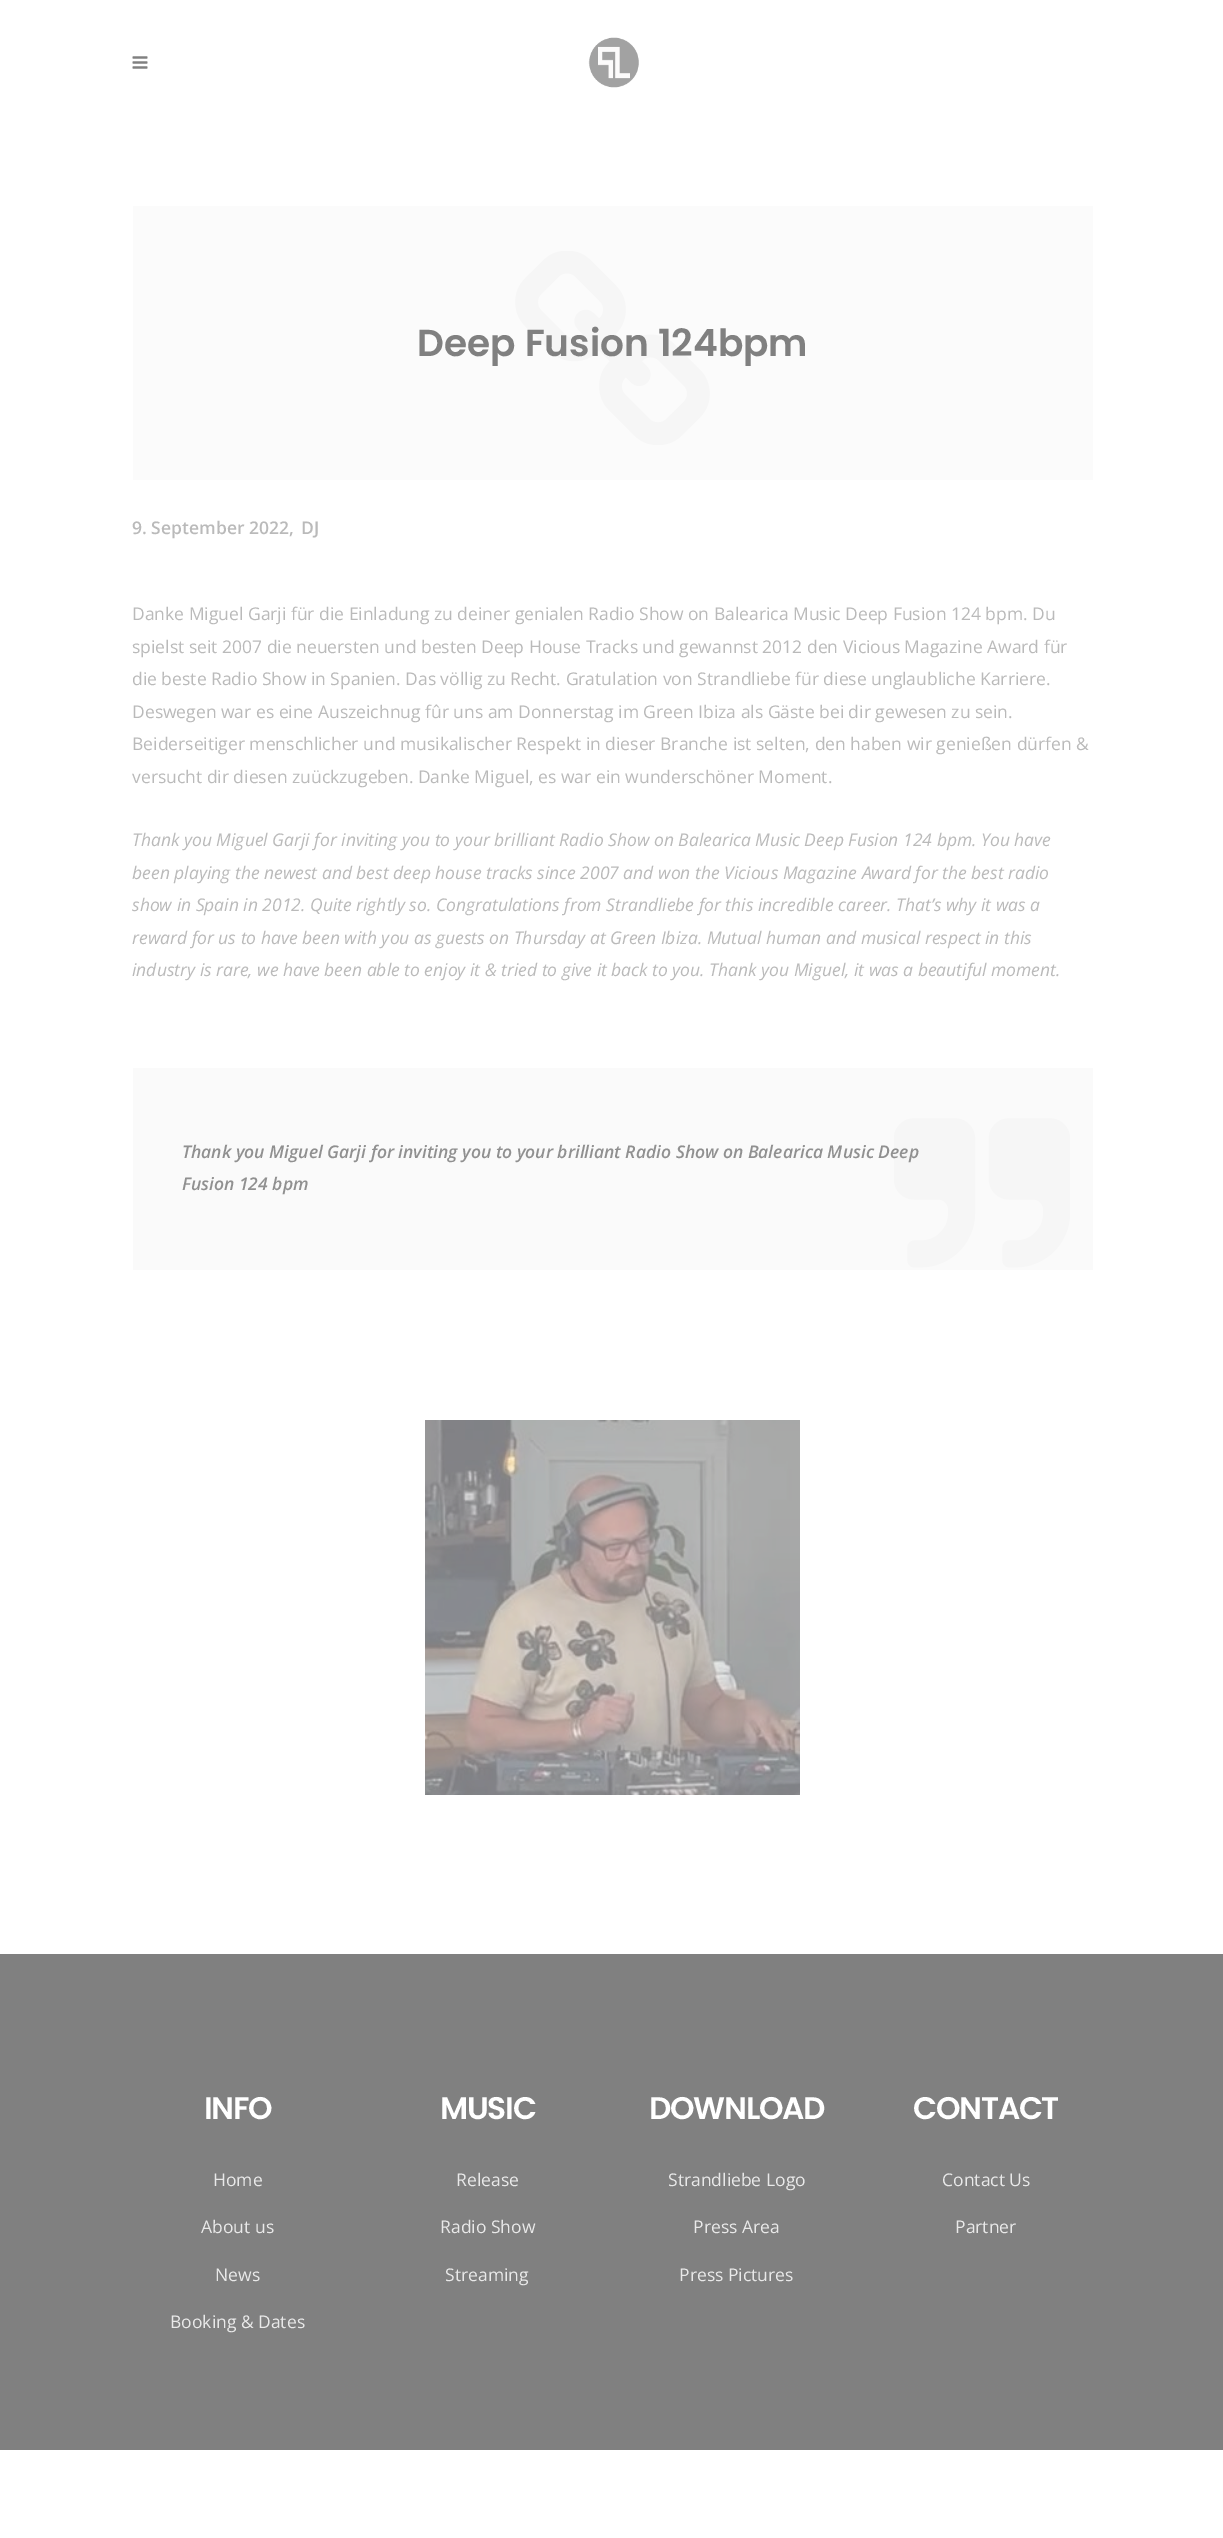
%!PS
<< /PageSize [1223 2538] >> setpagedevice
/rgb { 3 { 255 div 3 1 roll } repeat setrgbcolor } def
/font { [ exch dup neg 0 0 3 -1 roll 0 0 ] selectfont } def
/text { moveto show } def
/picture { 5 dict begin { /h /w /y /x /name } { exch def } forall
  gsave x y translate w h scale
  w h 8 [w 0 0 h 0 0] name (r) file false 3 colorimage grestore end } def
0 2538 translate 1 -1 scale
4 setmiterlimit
255 255 255 rgb
0 0 1223 2538 rectfill
(img_01.rgb) 132 56 16 13 picture
(img_02.rgb) 588 37 51 51 picture
251 251 251 rgb
133 206 960 274 rectfill
(img_03.rgb) 515 251 195 194 picture
250 250 250 rgb
133 1068 960 202 rectfill
(img_04.rgb) 894 1118 176 150 picture
(img_05.rgb) 425 1420 375 375 picture
128 128 128 rgb
0 1954 1223 496 rectfill
/Poppins-SemiBold 37.5 font
(Deep Fusion 124bpm) 417 356 text
/OpenSans-SemiBold 17.5 font
186 186 186 rgb
(9. September 2022,) 132 534 text
(DJ) 301 534 text
/OpenSans-Regular 17.5 font
(Danke Miguel Garji für die Einladung zu deiner genialen Radio Show on Balearica Music Deep Fusion 124 bpm. Du) 132 620 text
(spielst seit 2007 die neuersten und besten Deep House Tracks und gewannst 2012 den Vicious Magazine Award für) 132 653 text
(die beste Radio Show in Spanien. Das völlig zu Recht. Gratulation von Strandliebe für diese unglaubliche Karriere.) 132 685 text
(Deswegen war es eine Auszeichnug fûr uns am Donnerstag im Green Ibiza als Gäste bei dir gewesen zu sein.) 132 718 text
(Beiderseitiger menschlicher und musikalischer Respekt in dieser Branche ist selten, den haben wir genießen dürfen &) 132 750 text
(versucht dir diesen zuückzugeben. Danke Miguel, es war ein wunderschöner Moment.) 132 783 text
/OpenSans-Italic 17.5 font
(Thank you Miguel Garji for inviting you to your brilliant Radio Show on Balearica Music Deep Fusion 124 bpm. You have) 132 846 text
(been playing the newest and best deep house tracks since 2007 and won the Vicious Magazine Award for the best radio) 132 879 text
(show in Spain in 2012. Quite rightly so. Congratulations from Strandliebe for this incredible career. That’s why it was a) 132 911 text
(reward for us to have been with you as guests on Thursday at Green Ibiza. Mutual human and musical respect in this) 132 944 text
(industry is rare, we have been able to enjoy it & tried to give it back to you. Thank you Miguel, it was a beautiful moment.) 132 976 text
/OpenSans-SemiBoldItalic 17.5 font
144 144 144 rgb
(Thank you Miguel Garji for inviting you to your brilliant Radio Show on Balearica Music Deep) 182 1158 text
(Fusion 124 bpm) 182 1190 text
/Poppins-SemiBold 31.25 font
255 255 255 rgb
204 2119 moveto -1.25 0 (INFO) ashow
/OpenSans-Regular 17.5 font
233 233 233 rgb
(Home) 213 2186 text
(About us) 201 2233 text
(News) 215 2281 text
(Booking & Dates) 170 2328 text
/Poppins-SemiBold 31.25 font
255 255 255 rgb
440 2119 moveto -1.25 0 (MUSIC) ashow
/OpenSans-Regular 17.5 font
233 233 233 rgb
(Release) 456 2186 text
(Radio Show) 440 2233 text
(Streaming) 445 2281 text
/Poppins-SemiBold 31.25 font
255 255 255 rgb
649 2119 moveto -1.25 0 (DOWNLOAD) ashow
/OpenSans-Regular 17.5 font
233 233 233 rgb
(Strandliebe Logo) 668 2186 text
(Press Area) 693 2233 text
(Press Pictures) 679 2281 text
/Poppins-SemiBold 31.25 font
255 255 255 rgb
913 2119 moveto -1.25 0 (CONTACT) ashow
/OpenSans-Regular 17.5 font
233 233 233 rgb
(Contact Us) 942 2186 text
(Partner) 955 2233 text
showpage
